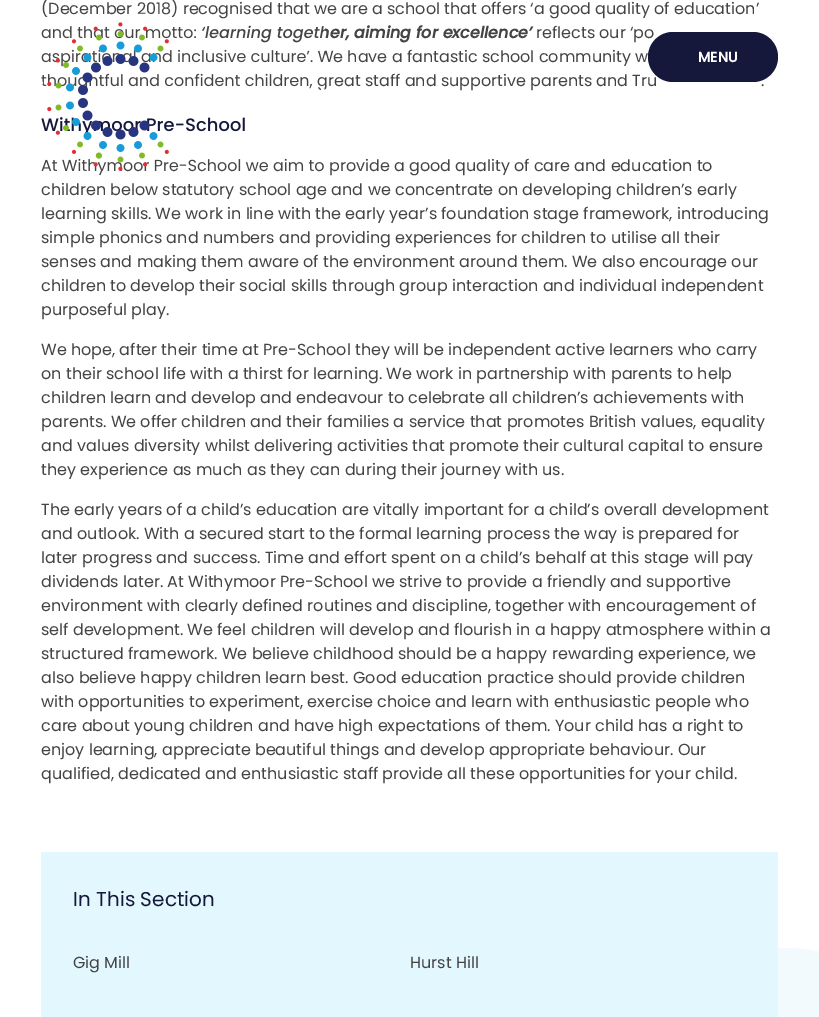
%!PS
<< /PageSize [819 1017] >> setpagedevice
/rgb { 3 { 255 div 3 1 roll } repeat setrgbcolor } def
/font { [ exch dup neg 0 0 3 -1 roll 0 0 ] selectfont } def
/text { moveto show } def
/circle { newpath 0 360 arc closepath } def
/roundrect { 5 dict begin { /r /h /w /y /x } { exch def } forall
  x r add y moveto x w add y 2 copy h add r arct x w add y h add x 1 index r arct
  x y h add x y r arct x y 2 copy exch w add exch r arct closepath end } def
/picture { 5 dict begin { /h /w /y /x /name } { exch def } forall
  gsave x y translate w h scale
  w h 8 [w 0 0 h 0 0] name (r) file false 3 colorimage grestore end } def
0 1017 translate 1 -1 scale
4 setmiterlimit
255 255 255 rgb
0 0 819 1017 rectfill
gsave
574 948 245 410 rectclip
242 250 254 rgb
109.8 setlinewidth
778.5 1152.5 150 circle stroke
grestore
227 247 255 rgb
41 852 737 165 rectfill
/Poppins-Regular 16 font
68 68 68 rgb
(\(December 2018\) recognised that we are a school that offers ‘a good quality of education’) 41 14 text
(and that our motto:) 41 38 text
/Poppins-BoldItalic 16 font
(‘learning together, aiming for excellence’) 201 38 text
/Poppins-Regular 16 font
(reflects our ‘po) 536 38 text
(aspirati) 41 62 text
(d inclusive culture’. We have a fantastic school community w) 162 62 text
(t) 41 86 text
(tful and confident children, great staff and supportive parents and Tru) 99 86 text
(.) 761 86 text
/Poppins-Medium 18 font
21 23 59 rgb
(Withymoor Pre-School) 41 131 text
/Poppins-Regular 16 font
68 68 68 rgb
(At Withymoor Pre-School we aim to provide a good quality of care and education to) 41 171 text
(children below statutory school age and we concentrate on developing children’s early) 41 195 text
(learning skills. We work in line with the early year’s foundation stage framework, introducing) 41 219 text
(simple phonics and numbers and providing experiences for children to utilise all their) 41 243 text
(senses and making them aware of the environment around them. We also encourage our) 41 267 text
(children to develop their social skills through group interaction and individual independent) 41 291 text
(purposeful play.) 41 315 text
(We hope, after their time at Pre-School they will be independent active learners who carry) 41 355 text
(on their school life with a thirst for learning. We work in partnership with parents to help) 41 379 text
(children learn and develop and endeavour to celebrate all children’s achievements with) 41 403 text
(parents. We offer children and their families a service that promotes British values, equality) 41 427 text
(and values diversity whilst delivering activities that promote their cultural capital to ensure) 41 451 text
(they experience as much as they can during their journey with us.) 41 475 text
(The early years of a child’s education are vitally important for a child’s overall development) 41 515 text
(and outlook. With a secured start to the formal learning process the way is prepared for) 41 539 text
(later progress and success. Time and effort spent on a child’s behalf at this stage will pay) 41 563 text
(dividends later. At Withymoor Pre-School we strive to provide a friendly and supportive) 41 587 text
(environment with clearly defined routines and discipline, together with encouragement of) 41 611 text
(self development. We feel children will develop and flourish in a happy atmosphere within a) 41 635 text
(structured framework. We believe childhood should be a happy rewarding experience, we) 41 659 text
(also believe happy children learn best. Good education practice should provide children) 41 683 text
(with opportunities to experiment, exercise choice and learn with enthusiastic people who) 41 707 text
(care about young children and have high expectations of them. Your child has a right to) 41 731 text
(enjoy learning, appreciate beautiful things and develop appropriate behaviour. Our) 41 755 text
(qualified, dedicated and enthusiastic staff provide all these opportunities for your child.) 41 779 text
/Poppins-Regular 20 font
21 23 59 rgb
(In This Section) 73 906 text
/Poppins-Regular 16 font
68 68 68 rgb
(Gig Mill) 73 968 text
(Hurst Hill) 410 968 text
(img_01.rgb) 42 22 283 149 picture
21 23 59 rgb
648 32 130 50 25 roundrect fill
/Poppins-Bold 14 font
255 255 255 rgb
(MENU) 698 62 text
showpage
